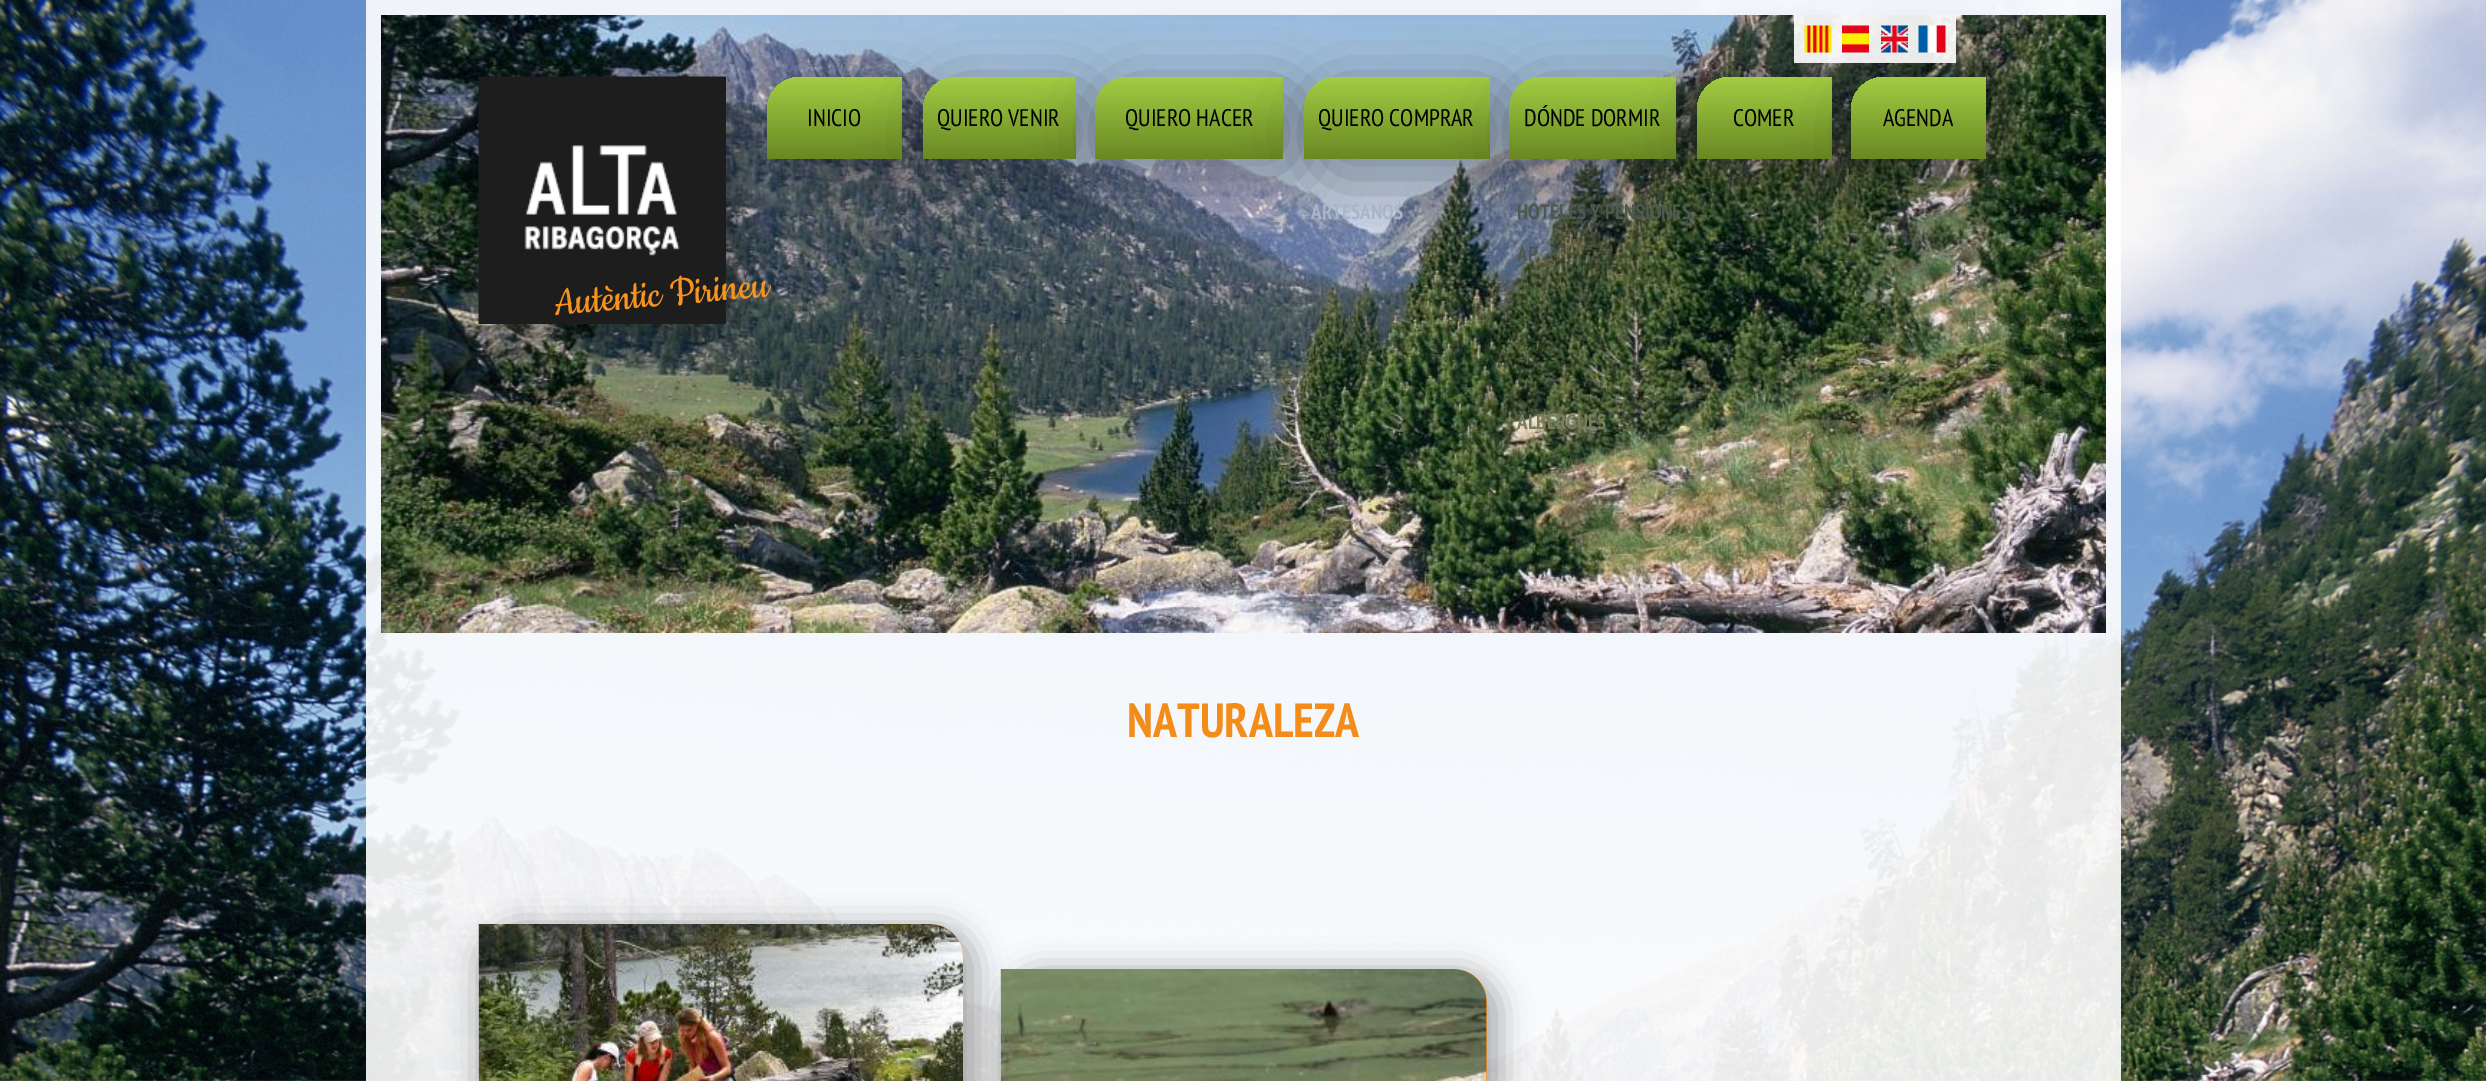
%!PS
<< /PageSize [2486 1081] /PageUsesTransparency true >> setpagedevice
/rgb { 3 { 255 div 3 1 roll } repeat setrgbcolor } def
/font { [ exch dup neg 0 0 3 -1 roll 0 0 ] selectfont } def
/text { moveto show } def
/alpha { dup .setfillconstantalpha .setstrokeconstantalpha } def
/roundrect { 5 dict begin { /r /h /w /y /x } { exch def } forall
  x r add y moveto x w add y 2 copy h add r arct x w add y h add x 1 index r arct
  x y h add x y r arct x y 2 copy exch w add exch r arct closepath end } def
/shadow { 12 dict begin { /a /b /q /h /w /y /x } { exch def } forall gsave /was 0 def
  9 -2 -9 { dup b mul 4 div /e exch def 1 sub .425 mul 2.718 exch exp 1 add a .99 .min exch div /now exch def
    1 1 now sub 1 was sub div sub alpha /was now def
    w h .min e 2 mul add 0 gt { x e sub y e sub w e 2 mul add h e 2 mul add
      q e add b .6 mul add w h .min 2 div e add .min 0 .max roundrect fill } if } for grestore end } def
/picture { 5 dict begin { /h /w /y /x /name } { exch def } forall
  gsave x y translate w h scale
  w h 8 [w 0 0 h 0 0] name (r) file false 3 colorimage grestore end } def
0 .pushpdf14devicefilter
0 1081 translate 1 -1 scale
4 setmiterlimit
255 255 255 rgb
0 0 2486 1081 rectfill
(img_01.rgb) 0 0 2486 1081 picture
0.9 alpha
366 0 1755 483 rectfill
366 483 1755 598 rectfill
1 alpha
(img_02.rgb) 381 15 1725 618 picture
0 0 0 rgb
479 77 262 262 44 15 0.3 shadow
(img_07.rgb) 478 76 248 248 picture
767 77 165 112 48 30 0.3 shadow
gsave 800 77 moveto 102 0 rlineto 0 82 rlineto -135 0 rlineto 0 -49 rlineto 0 -18 15 -33 33 -33 rcurveto closepath clip newpath
<< /ShadingType 2 /ColorSpace /DeviceRGB /Coords [834 76 834 159] /Extend [true true] /Function << /FunctionType 2 /Domain [0 1] /C0 [0.643 0.808 0.263] /C1 [0.412 0.533 0.137] /N 1 >> >> shfill grestore
923 77 183 112 48 30 0.3 shadow
gsave 956 77 moveto 120 0 rlineto 0 82 rlineto -153 0 rlineto 0 -49 rlineto 0 -18 15 -33 33 -33 rcurveto closepath clip newpath
<< /ShadingType 2 /ColorSpace /DeviceRGB /Coords [999 76 999 159] /Extend [true true] /Function << /FunctionType 2 /Domain [0 1] /C0 [0.643 0.808 0.263] /C1 [0.412 0.533 0.137] /N 1 >> >> shfill grestore
1095 77 218 112 48 30 0.3 shadow
gsave 1128 77 moveto 155 0 rlineto 0 82 rlineto -188 0 rlineto 0 -49 rlineto 0 -18 15 -33 33 -33 rcurveto closepath clip newpath
<< /ShadingType 2 /ColorSpace /DeviceRGB /Coords [1189 76 1189 159] /Extend [true true] /Function << /FunctionType 2 /Domain [0 1] /C0 [0.643 0.808 0.263] /C1 [0.412 0.533 0.137] /N 1 >> >> shfill grestore
1304 77 216 112 48 30 0.3 shadow
gsave 1337 77 moveto 153 0 rlineto 0 82 rlineto -186 0 rlineto 0 -49 rlineto 0 -18 15 -33 33 -33 rcurveto closepath clip newpath
<< /ShadingType 2 /ColorSpace /DeviceRGB /Coords [1397 76 1397 159] /Extend [true true] /Function << /FunctionType 2 /Domain [0 1] /C0 [0.643 0.808 0.263] /C1 [0.412 0.533 0.137] /N 1 >> >> shfill grestore
1509 77 197 112 48 30 0.3 shadow
gsave 1542 77 moveto 134 0 rlineto 0 82 rlineto -167 0 rlineto 0 -49 rlineto 0 -18 15 -33 33 -33 rcurveto closepath clip newpath
<< /ShadingType 2 /ColorSpace /DeviceRGB /Coords [1592 76 1592 159] /Extend [true true] /Function << /FunctionType 2 /Domain [0 1] /C0 [0.643 0.808 0.263] /C1 [0.412 0.533 0.137] /N 1 >> >> shfill grestore
1697 77 165 112 48 30 0.3 shadow
gsave 1730 77 moveto 102 0 rlineto 0 82 rlineto -135 0 rlineto 0 -49 rlineto 0 -18 15 -33 33 -33 rcurveto closepath clip newpath
<< /ShadingType 2 /ColorSpace /DeviceRGB /Coords [1764 76 1764 159] /Extend [true true] /Function << /FunctionType 2 /Domain [0 1] /C0 [0.643 0.808 0.263] /C1 [0.412 0.533 0.137] /N 1 >> >> shfill grestore
1851 77 165 112 48 30 0.3 shadow
0.9 alpha
255 255 255 rgb
1794 15 162 48 rectfill
1 alpha
(img_03.rgb) 1804 25 28 28 picture
(img_04.rgb) 1842 25 27 28 picture
(img_05.rgb) 1881 25 27 28 picture
(img_06.rgb) 1918 25 28 28 picture
gsave 1884 77 moveto 102 0 rlineto 0 82 rlineto -135 0 rlineto 0 -49 rlineto 0 -18 15 -33 33 -33 rcurveto closepath clip newpath
<< /ShadingType 2 /ColorSpace /DeviceRGB /Coords [1919 76 1919 159] /Extend [true true] /Function << /FunctionType 2 /Domain [0 1] /C0 [0.643 0.808 0.263] /C1 [0.412 0.533 0.137] /N 1 >> >> shfill grestore
0 0 0 rgb
479 924 499 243 41 15 0.3 shadow
244 140 26 rgb
479 924 moveto 451 0 rlineto 18 0 33 15 33 33 rcurveto 0 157 rlineto -451 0 rlineto -18 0 -33 -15 -33 -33 rcurveto closepath fill
(img_08.rgb) 478 924 485 157 picture
0 0 0 rgb
1001 969 501 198 41 15 0.3 shadow
244 140 26 rgb
1001 969 moveto 453 0 rlineto 18 0 33 15 33 33 rcurveto 0 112 rlineto -453 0 rlineto -18 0 -33 -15 -33 -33 rcurveto closepath fill
(img_09.rgb) 1000 969 487 112 picture
/Cookie-Regular 45 font
247 147 30 rgb
gsave 555 315 translate -5 rotate 0 0 moveto (Autèntic Pirineu) show grestore
/PTSansNarrow-Regular 24 font
0 0 0 rgb
(INICIO) 807 126 text
(QUIERO VENIR) 937 126 text
(QUIERO HACER) 1125 126 text
(QUIERO COMPRAR) 1318 126 text
/PTSansNarrow-Bold 21 font
170 181 201 rgb
(ARTESANOS) 1311 219 text
/PTSansNarrow-Regular 24 font
0 0 0 rgb
(DÓNDE DORMIR) 1524 126 text
/PTSansNarrow-Bold 21 font
77 88 79 rgb
(HOTELES Y PENSIONES) 1517 219 text
(AP) 1517 261 text
121 125 95 rgb
(ALBERGUES) 1517 429 text
/PTSansNarrow-Regular 24 font
0 0 0 rgb
(COMER) 1733 126 text
(AGENDA) 1883 126 text
/PTSansNarrow-Bold 48 font
244 140 26 rgb
(NATURALEZA) 1127 737 text
.poppdf14devicefilter showpage
